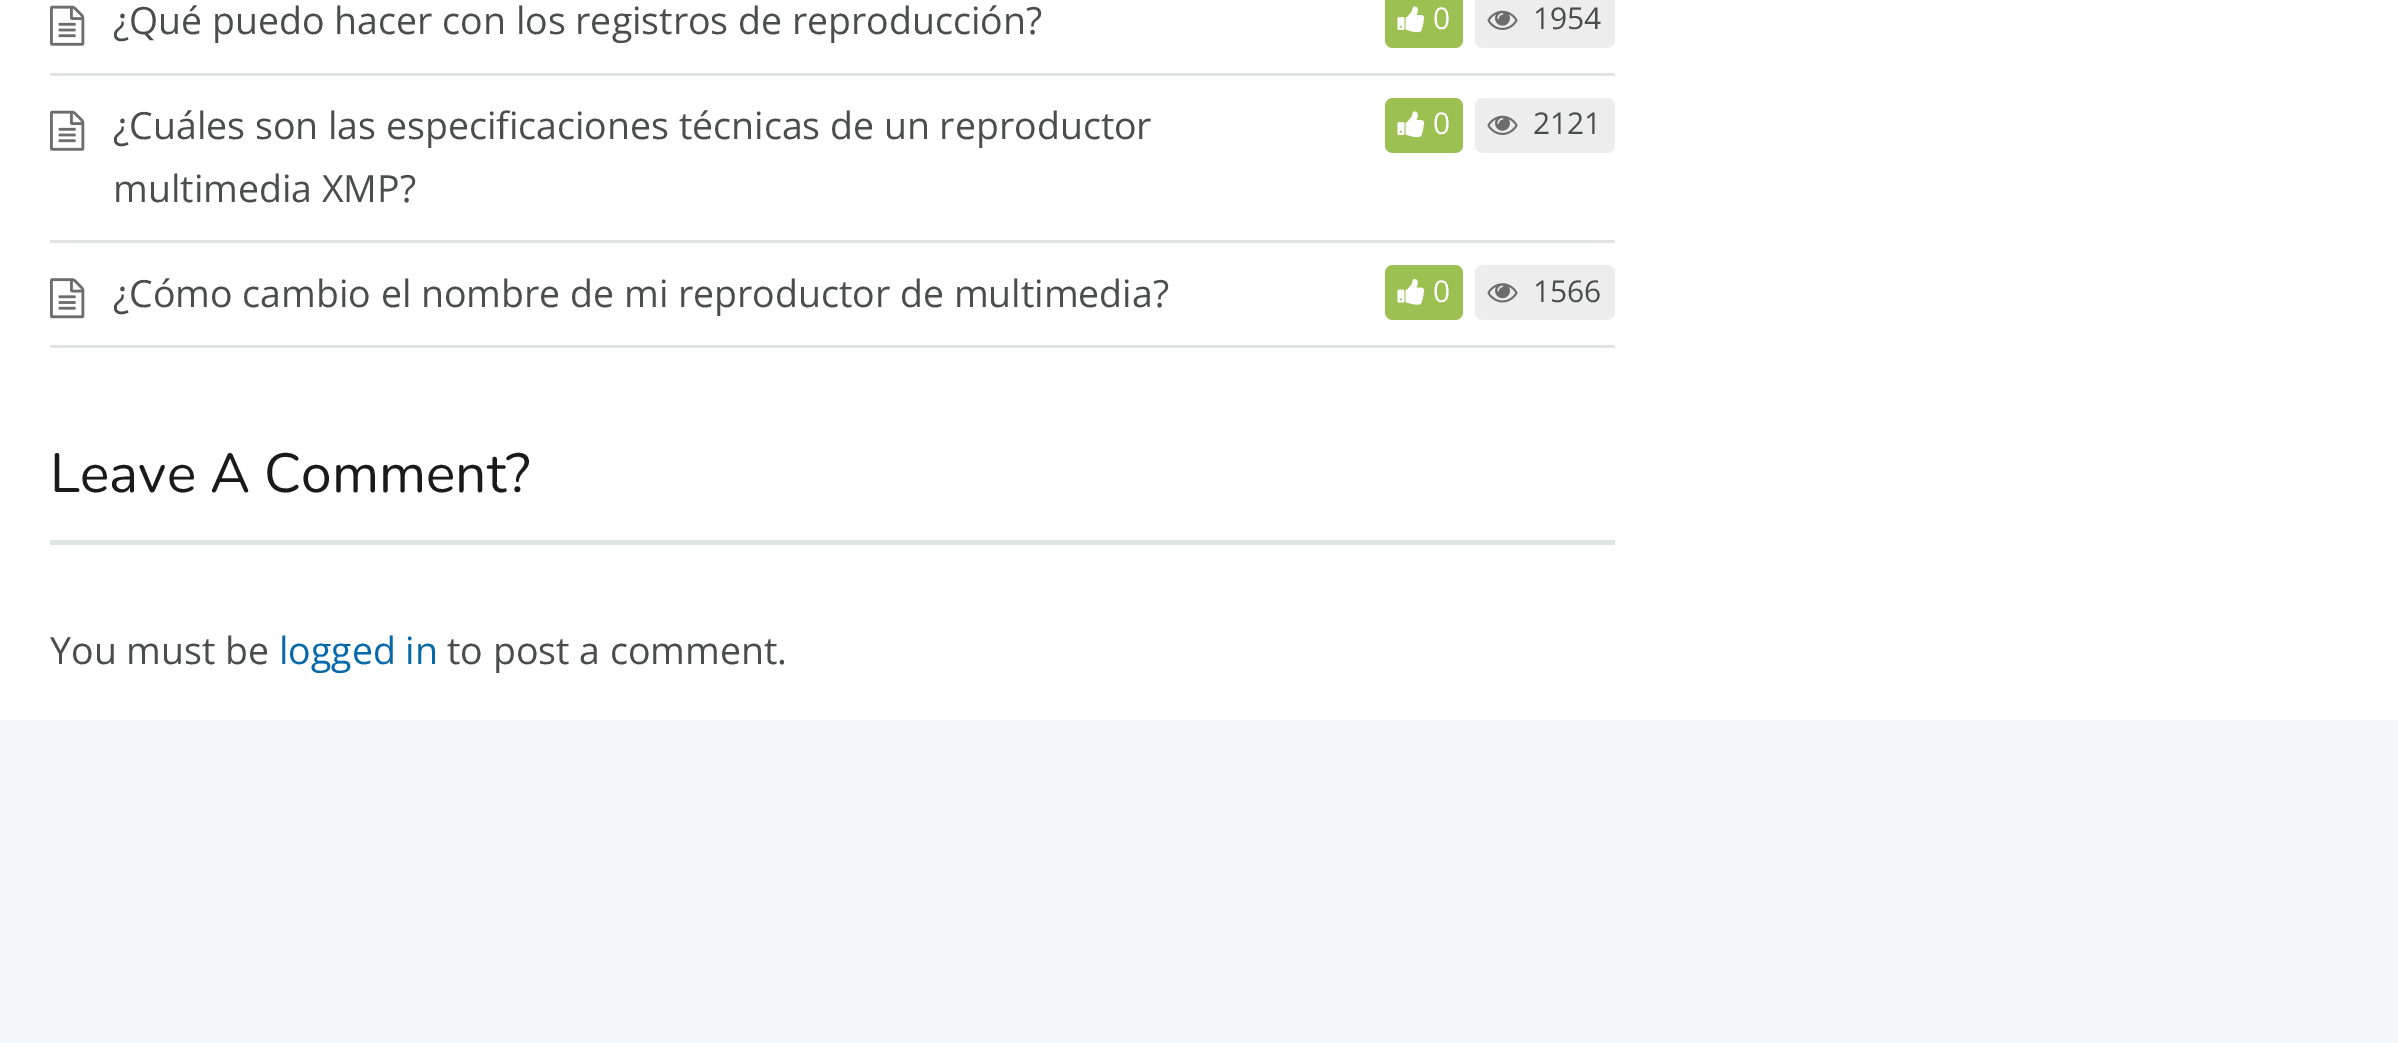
%!PS
<< /PageSize [2398 1043] >> setpagedevice
/rgb { 3 { 255 div 3 1 roll } repeat setrgbcolor } def
/font { [ exch dup neg 0 0 3 -1 roll 0 0 ] selectfont } def
/text { moveto show } def
/roundrect { 5 dict begin { /r /h /w /y /x } { exch def } forall
  x r add y moveto x w add y 2 copy h add r arct x w add y h add x 1 index r arct
  x y h add x y r arct x y 2 copy exch w add exch r arct closepath end } def
/picture { 5 dict begin { /h /w /y /x /name } { exch def } forall
  gsave x y translate w h scale
  w h 8 [w 0 0 h 0 0] name (r) file false 3 colorimage grestore end } def
0 1043 translate 1 -1 scale
4 setmiterlimit
255 255 255 rgb
0 0 2398 1043 rectfill
225 227 230 rgb
50 73 1565 3 rectfill
(img_01.rgb) 50 5 35 41 picture
156 192 81 rgb
1385 -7 78 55 8 roundrect fill
(img_02.rgb) 1397 6 28 27 picture
237 237 237 rgb
1475 -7 140 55 8 roundrect fill
(img_03.rgb) 1487 10 31 20 picture
225 227 230 rgb
50 240 1565 3 rectfill
(img_01.rgb) 50 110 35 41 picture
156 192 81 rgb
1385 98 78 55 8 roundrect fill
(img_02.rgb) 1397 111 28 27 picture
237 237 237 rgb
1475 98 140 55 8 roundrect fill
(img_03.rgb) 1487 115 31 20 picture
225 227 230 rgb
50 345 1565 3 rectfill
(img_04.rgb) 50 278 35 41 picture
156 192 81 rgb
1385 265 78 55 8 roundrect fill
(img_05.rgb) 1397 278 28 27 picture
237 237 237 rgb
1475 265 140 55 8 roundrect fill
(img_06.rgb) 1487 283 31 20 picture
223 228 230 rgb
50 540 1565 5 rectfill
245 248 250 rgb
0 720 2398 323 rectfill
/OpenSans-Regular 37.5 font
75 77 77 rgb
(¿Qué puedo hacer con los registros de reproducción?) 113 34 text
/OpenSans-Regular 30 font
255 255 255 rgb
(0) 1433 29 text
75 77 77 rgb
(1954) 1533 29 text
/OpenSans-Regular 37.5 font
(¿Cuáles son las especificaciones técnicas de un reproductor) 113 139 text
/OpenSans-Regular 30 font
255 255 255 rgb
(0) 1433 134 text
75 77 77 rgb
(2121) 1533 134 text
/OpenSans-Regular 37.5 font
(multimedia XMP?) 113 202 text
(¿Cómo cambio el nombre de mi reproductor de multimedia?) 113 307 text
/OpenSans-Regular 30 font
255 255 255 rgb
(0) 1433 302 text
75 77 77 rgb
(1566) 1533 302 text
/Nunito-ExtraLight 55 font
26 26 26 rgb
(Leave A Comment?) 50 492 text
/OpenSans-Regular 37.5 font
75 77 77 rgb
(You must be) 50 664 text
6 105 170 rgb
(logged in) 279 664 text
75 77 77 rgb
(to post a comment.) 447 664 text
showpage
